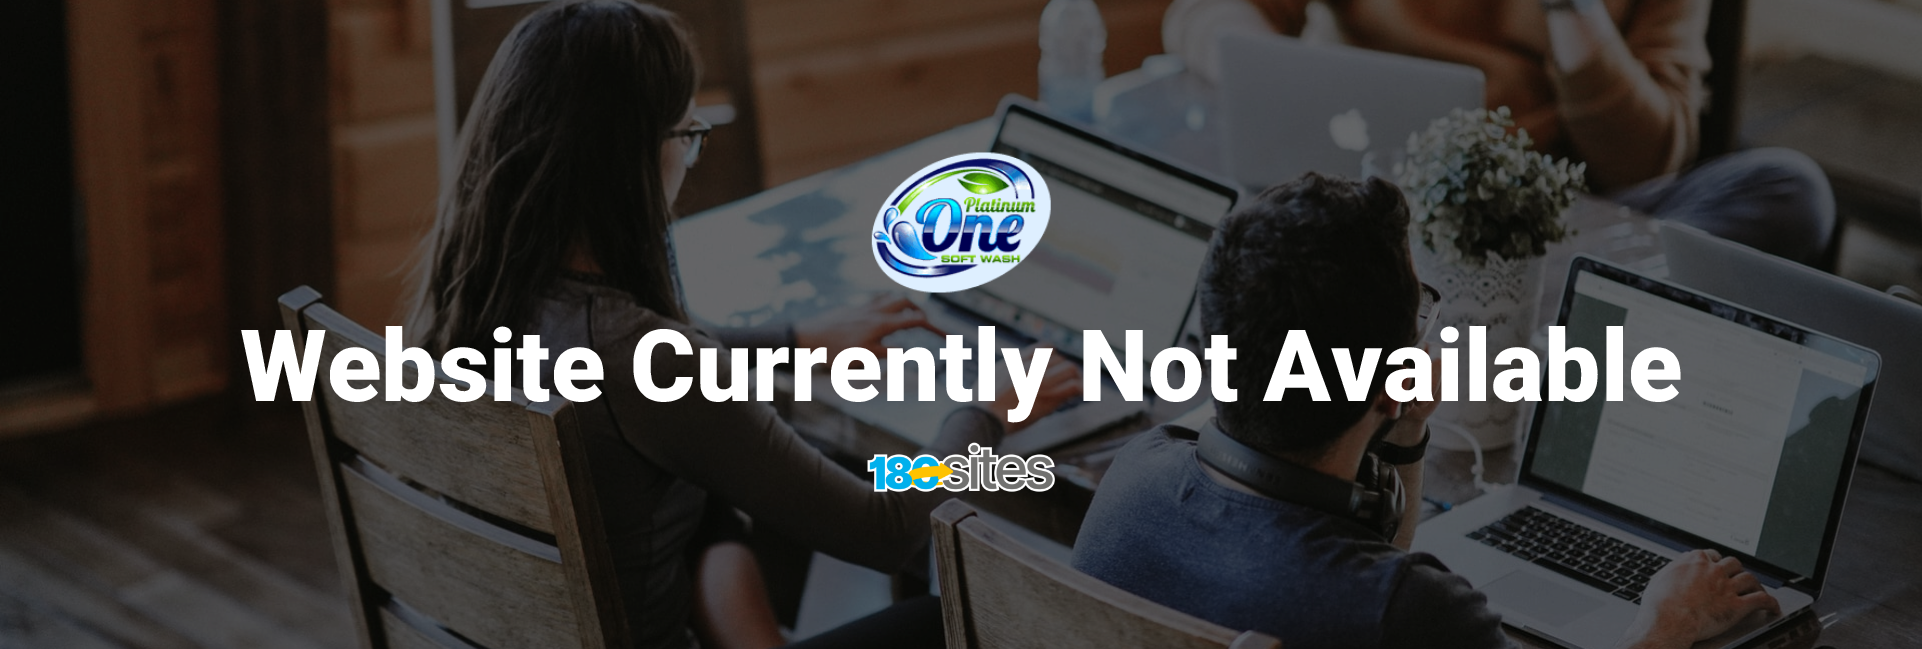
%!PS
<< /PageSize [1922 649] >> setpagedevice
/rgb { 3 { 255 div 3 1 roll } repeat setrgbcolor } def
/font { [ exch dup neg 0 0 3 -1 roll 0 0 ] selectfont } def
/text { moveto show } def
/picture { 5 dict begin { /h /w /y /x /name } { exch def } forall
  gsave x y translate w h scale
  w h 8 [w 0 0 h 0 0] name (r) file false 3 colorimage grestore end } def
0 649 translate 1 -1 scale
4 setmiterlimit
255 255 255 rgb
0 0 1922 649 rectfill
(img_01.rgb) 0 0 1922 649 picture
(img_02.rgb) 871 152 180 141 picture
(img_03.rgb) 867 442 188 50 picture
/Roboto-Black 100 font
(Website Currently Not Available) 240 401 text
showpage
